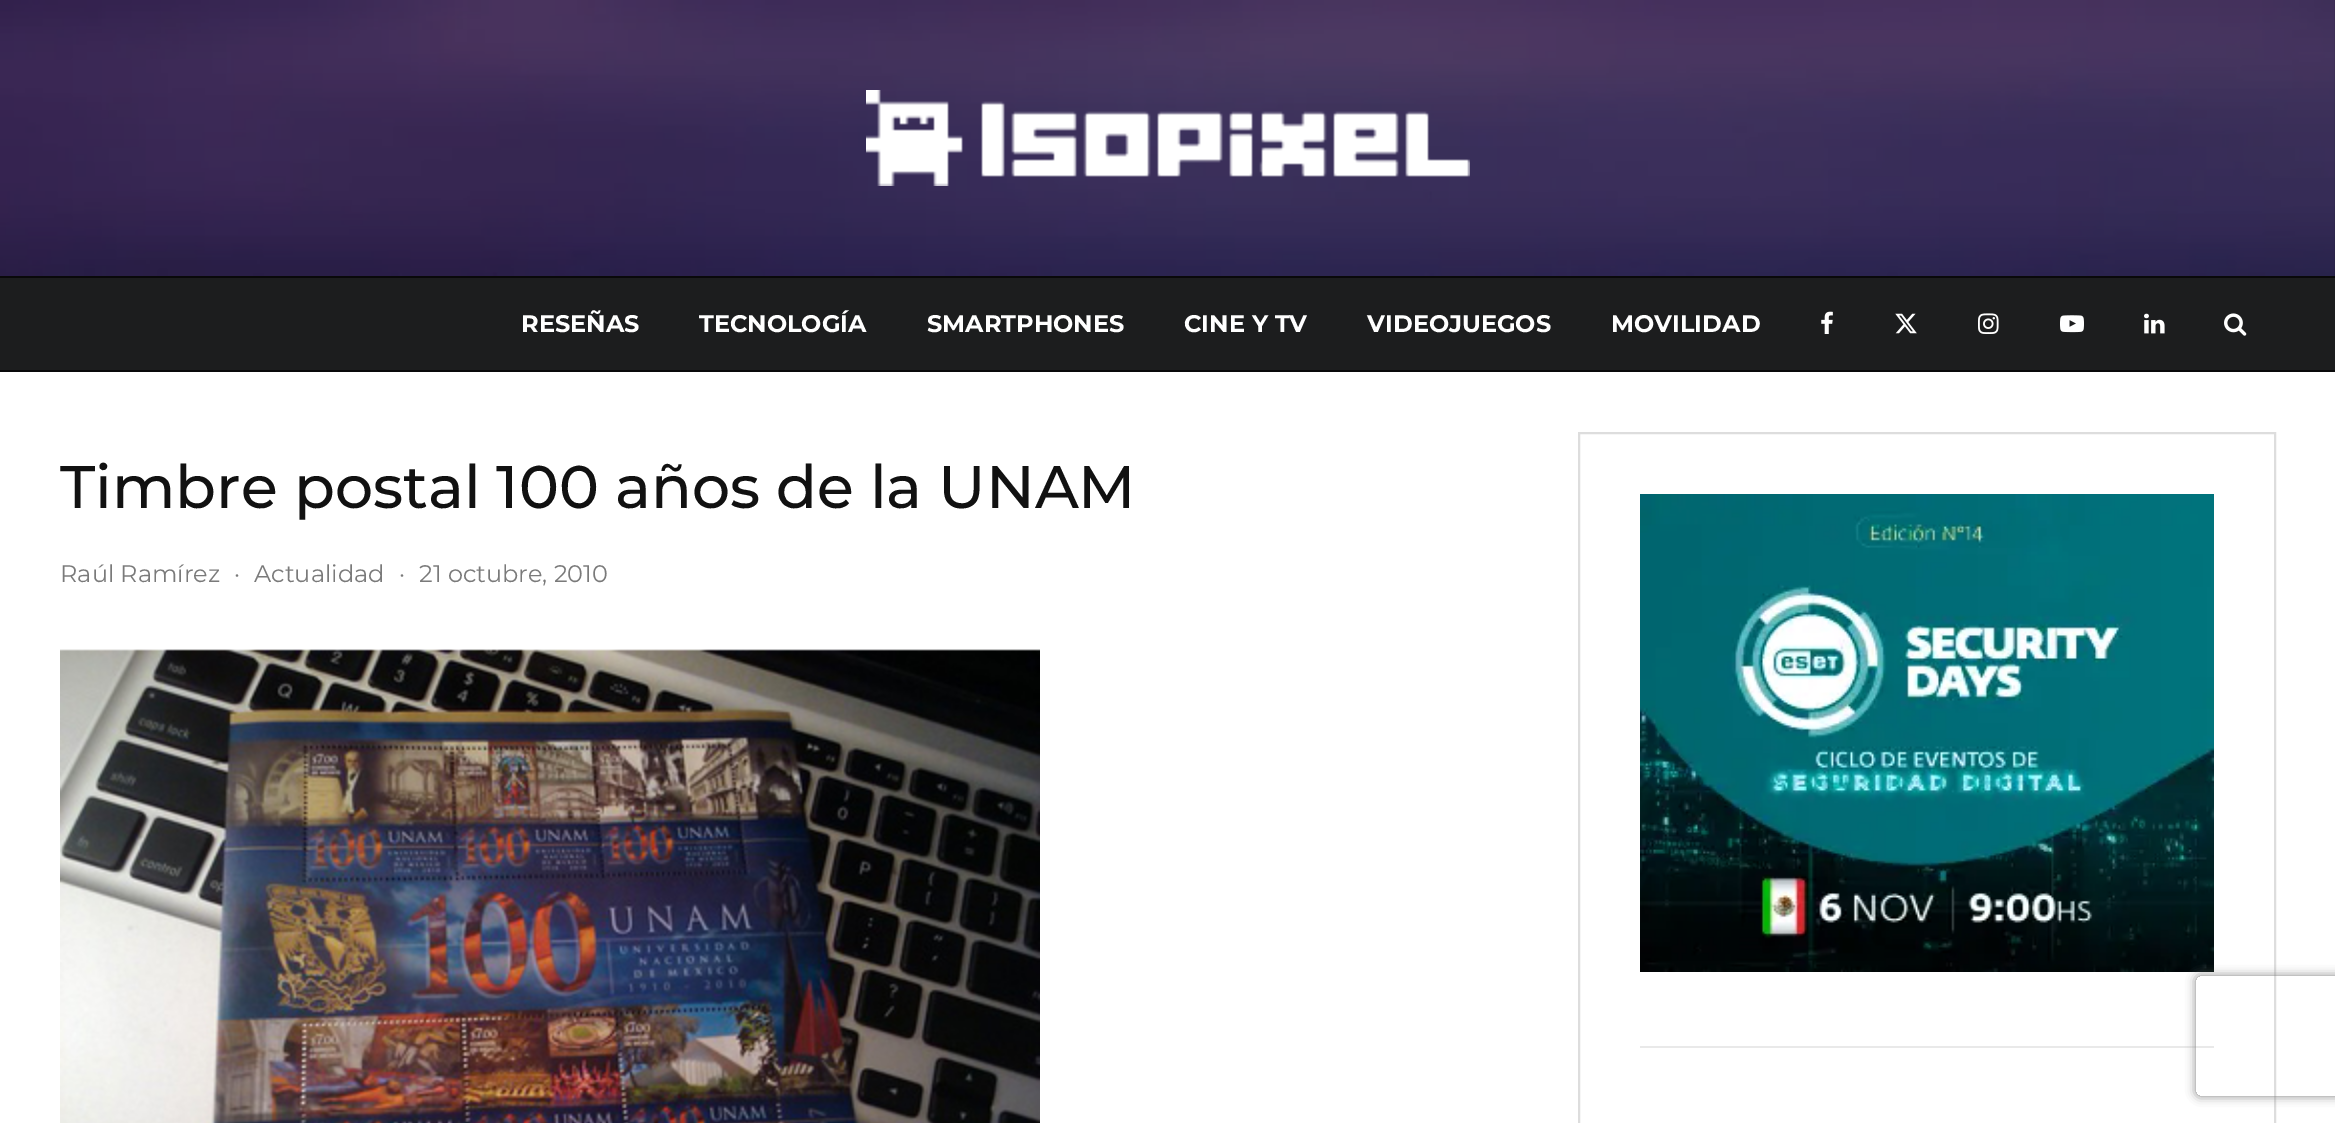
%!PS
<< /PageSize [2335 1123] /PageUsesTransparency true >> setpagedevice
/rgb { 3 { 255 div 3 1 roll } repeat setrgbcolor } def
/font { [ exch dup neg 0 0 3 -1 roll 0 0 ] selectfont } def
/text { moveto show } def
/alpha { dup .setfillconstantalpha .setstrokeconstantalpha } def
/roundrect { 5 dict begin { /r /h /w /y /x } { exch def } forall
  x r add y moveto x w add y 2 copy h add r arct x w add y h add x 1 index r arct
  x y h add x y r arct x y 2 copy exch w add exch r arct closepath end } def
/shadow { 12 dict begin { /a /b /q /h /w /y /x } { exch def } forall gsave /was 0 def
  9 -2 -9 { dup b mul 4 div /e exch def 1 sub .425 mul 2.718 exch exp 1 add a .99 .min exch div /now exch def
    1 1 now sub 1 was sub div sub alpha /was now def
    w h .min e 2 mul add 0 gt { x e sub y e sub w e 2 mul add h e 2 mul add
      q e add b .6 mul add w h .min 2 div e add .min 0 .max roundrect fill } if } for grestore end } def
/picture { 5 dict begin { /h /w /y /x /name } { exch def } forall
  gsave x y translate w h scale
  w h 8 [w 0 0 h 0 0] name (r) file false 3 colorimage grestore end } def
0 .pushpdf14devicefilter
0 1123 translate 1 -1 scale
4 setmiterlimit
255 255 255 rgb
0 0 2335 1123 rectfill
16 16 16 rgb
0 0 2335 276 rectfill
(img_01.rgb) 0 0 2335 276 picture
(img_02.rgb) 866 90 604 96 picture
28 29 30 rgb
0 278 2335 92 rectfill
9 9 10 rgb
0 276 2335 2 rectfill
0 370 2335 2 rectfill
(img_03.rgb) 1821 311 12 23 picture
(img_04.rgb) 1895 313 22 21 picture
(img_05.rgb) 1978 313 21 21 picture
(img_06.rgb) 2060 315 24 18 picture
(img_07.rgb) 2144 313 21 21 picture
(img_08.rgb) 2224 313 23 23 picture
(img_09.rgb) 60 649 980 474 picture
221 221 221 rgb
2 setlinewidth
1579 433 696 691 rectstroke
233 233 233 rgb
1640 1046 574 2 rectfill
(img_10.rgb) 1640 494 574 478 picture
gsave
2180 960 moveto 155 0 rlineto 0 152 rlineto -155 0 rlineto closepath 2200 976 moveto 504 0 rlineto 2 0 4 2 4 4 rcurveto 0 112 rlineto 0 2 -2 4 -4 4 rcurveto -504 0 rlineto -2 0 -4 -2 -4 -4 rcurveto 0 -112 rlineto 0 -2 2 -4 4 -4 rcurveto closepath eoclip newpath
128 128 128 rgb
2196 976 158 120 4 5 1 shadow
grestore
/Montserrat-Bold 24 font
255 255 255 rgb
(RESEÑAS) 521 332 text
(TECNOLOGÍA) 699 332 text
(SMARTPHONES) 927 332 text
(CINE Y TV) 1184 332 text
(VIDEOJUEGOS) 1367 332 text
(MOVILIDAD) 1611 332 text
/Montserrat-Medium 60 font
17 17 17 rgb
(Timbre postal 100 años de la UNAM) 60 508 text
/Montserrat-Regular 24 font
122 122 122 rgb
(Raúl Ramírez) 60 582 text
(·) 234 582 text
(Actualidad) 254 582 text
(·) 399 582 text
(21 octubre, 2010) 419 582 text
.poppdf14devicefilter showpage
